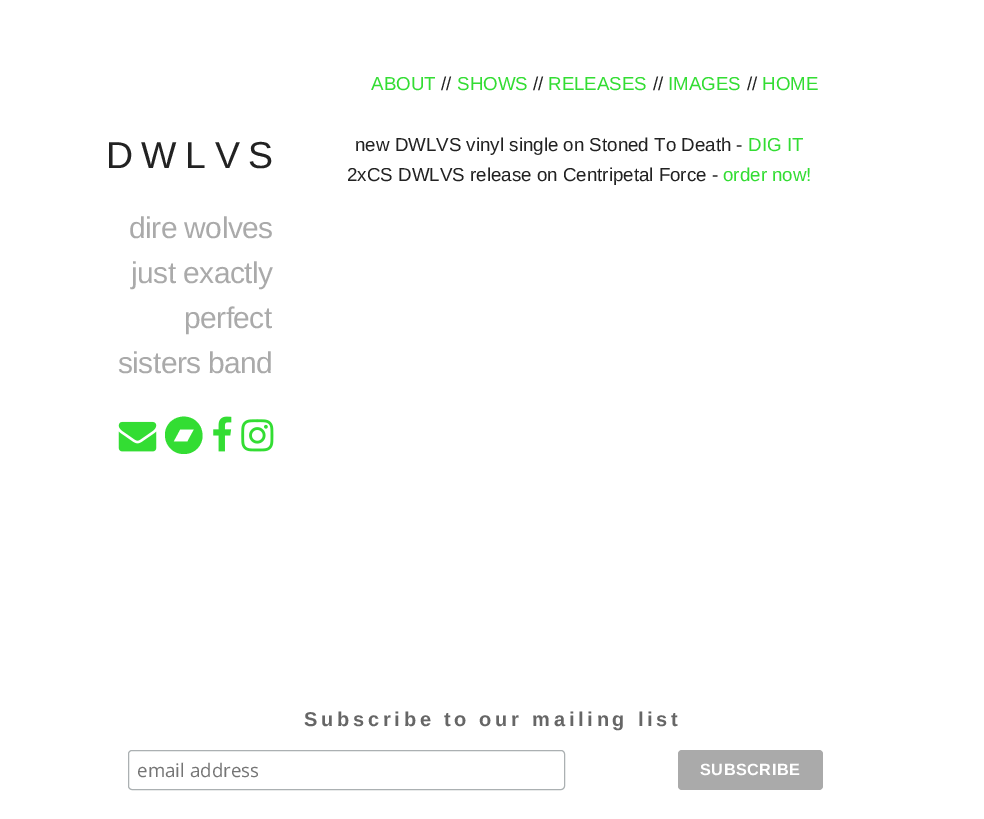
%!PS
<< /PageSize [984 819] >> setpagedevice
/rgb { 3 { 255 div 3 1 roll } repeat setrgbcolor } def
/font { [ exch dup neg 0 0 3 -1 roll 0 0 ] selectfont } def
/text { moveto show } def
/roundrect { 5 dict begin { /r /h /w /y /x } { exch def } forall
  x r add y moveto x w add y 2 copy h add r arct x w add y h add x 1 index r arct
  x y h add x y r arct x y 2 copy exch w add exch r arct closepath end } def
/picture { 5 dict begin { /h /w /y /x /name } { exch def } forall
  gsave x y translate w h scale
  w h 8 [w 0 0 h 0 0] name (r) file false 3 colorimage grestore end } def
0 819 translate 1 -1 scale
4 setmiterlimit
255 255 255 rgb
0 0 984 819 rectfill
(img_01.rgb) 118 421 39 31 picture
51 221 51 rgb
187.5 441.5 moveto 6.5 -12 rlineto -14 0 rlineto -6.5 12 rlineto closepath 201 428 moveto 1.5 4 2 8 1 12 rcurveto -4.5 17.5 -28.5 19 -35.5 2.5 rcurveto -1.5 -3.5 -2 -8 -1 -12 rcurveto 4.5 -17 28.5 -19 35.5 -2.5 rcurveto closepath fill
(img_02.rgb) 213 416 19 36 picture
(img_03.rgb) 241 419 33 33 picture
171 176 178 rgb
128.5 750.5 436 39 3.5 roundrect stroke
170 170 170 rgb
678 750 145 40 4 roundrect fill
/LiberationSans-Regular 18.75 font
51 221 51 rgb
(ABOUT) 371 90 text
34 34 34 rgb
(//) 441 90 text
51 221 51 rgb
(SHOWS) 457 90 text
34 34 34 rgb
(//) 533 90 text
51 221 51 rgb
(RELEASES) 548 90 text
34 34 34 rgb
(//) 653 90 text
51 221 51 rgb
(IMAGES) 668 90 text
34 34 34 rgb
(//) 747 90 text
51 221 51 rgb
(HOME) 762 90 text
/LiberationSans-Regular 37.5 font
34 34 34 rgb
106 168 moveto -1 0 (D W L V S) ashow
/LiberationSans-Regular 30 font
170 170 170 rgb
129 238 moveto -0.6 0 (dire wolves) ashow
131 283 moveto -0.6 0 (just exactly) ashow
184 328 moveto -0.6 0 (perfect) ashow
118 373 moveto -0.6 0 (sisters band) ashow
/LiberationSans-Regular 18.75 font
34 34 34 rgb
(new DWLVS vinyl single on Stoned To Death -) 355 151 text
51 221 51 rgb
(DIG IT) 748 151 text
34 34 34 rgb
(2xCS DWLVS release on Centripetal Force -) 347 181 text
51 221 51 rgb
(order now!) 723 181 text
/LiberationSans-Bold 20 font
102 102 102 rgb
304 726 moveto 3.75 0 (Subscribe to our mailing list) ashow
/OpenSans-Regular 18.75 font
117 117 117 rgb
(email address) 137 777 text
/LiberationSans-Bold 16.25 font
255 255 255 rgb
700 775 moveto 0.5 0 (SUBSCRIBE) ashow
showpage
